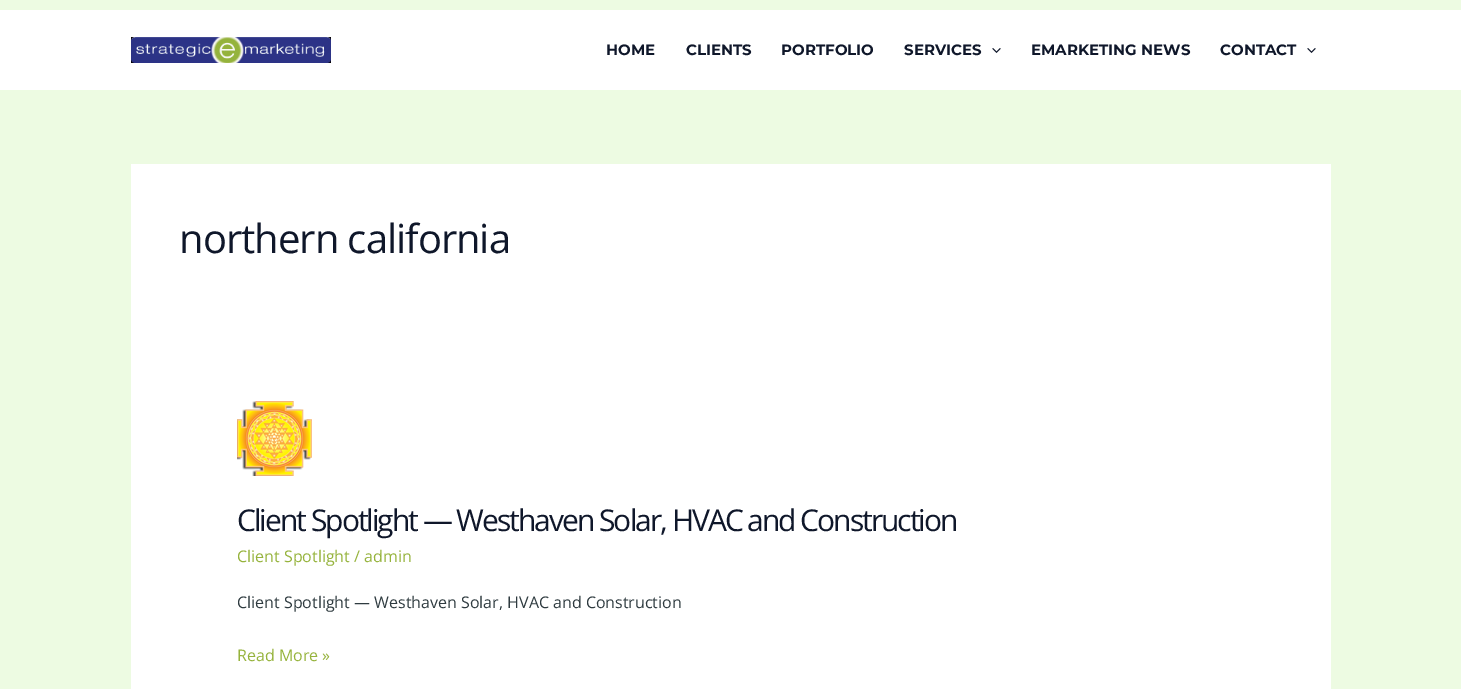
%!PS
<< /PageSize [1461 689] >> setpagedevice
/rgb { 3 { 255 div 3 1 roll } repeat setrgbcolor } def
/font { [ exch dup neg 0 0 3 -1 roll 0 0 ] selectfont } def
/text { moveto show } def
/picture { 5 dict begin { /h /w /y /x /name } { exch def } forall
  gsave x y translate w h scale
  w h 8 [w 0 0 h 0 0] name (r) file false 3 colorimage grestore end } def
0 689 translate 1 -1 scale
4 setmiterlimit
237 251 226 rgb
0 0 1461 689 rectfill
255 255 255 rgb
0 10 1461 80 rectfill
(img_01.rgb) 131 37 200 26 picture
(img_02.rgb) 992 48 9 5 picture
(img_02.rgb) 1307 48 9 5 picture
131 164 1200 525 rectfill
(img_03.rgb) 237 401 75 75 picture
/Montserrat-Thin 15 font
15 23 42 rgb
(HOME) 606 55 text
(CLIENTS) 686 55 text
(PORTFOLIO) 781 55 text
(SERVICES) 904 55 text
(EMARKETING NEWS) 1031 55 text
(CONTACT) 1220 55 text
/OpenSans-Regular 40 font
179 253 moveto -1 0 (northern california) ashow
/OpenSans-Regular 30 font
237 531 moveto -2 0 (Client Spotlight — Westhaven Solar, HVAC and Construction) ashow
/OpenSans-Regular 16 font
150 179 60 rgb
(Client Spotlight / admin) 237 562 text
47 59 64 rgb
(Client Spotlight — Westhaven Solar, HVAC and Construction) 237 608 text
150 179 60 rgb
(Read More ») 237 661 text
showpage
